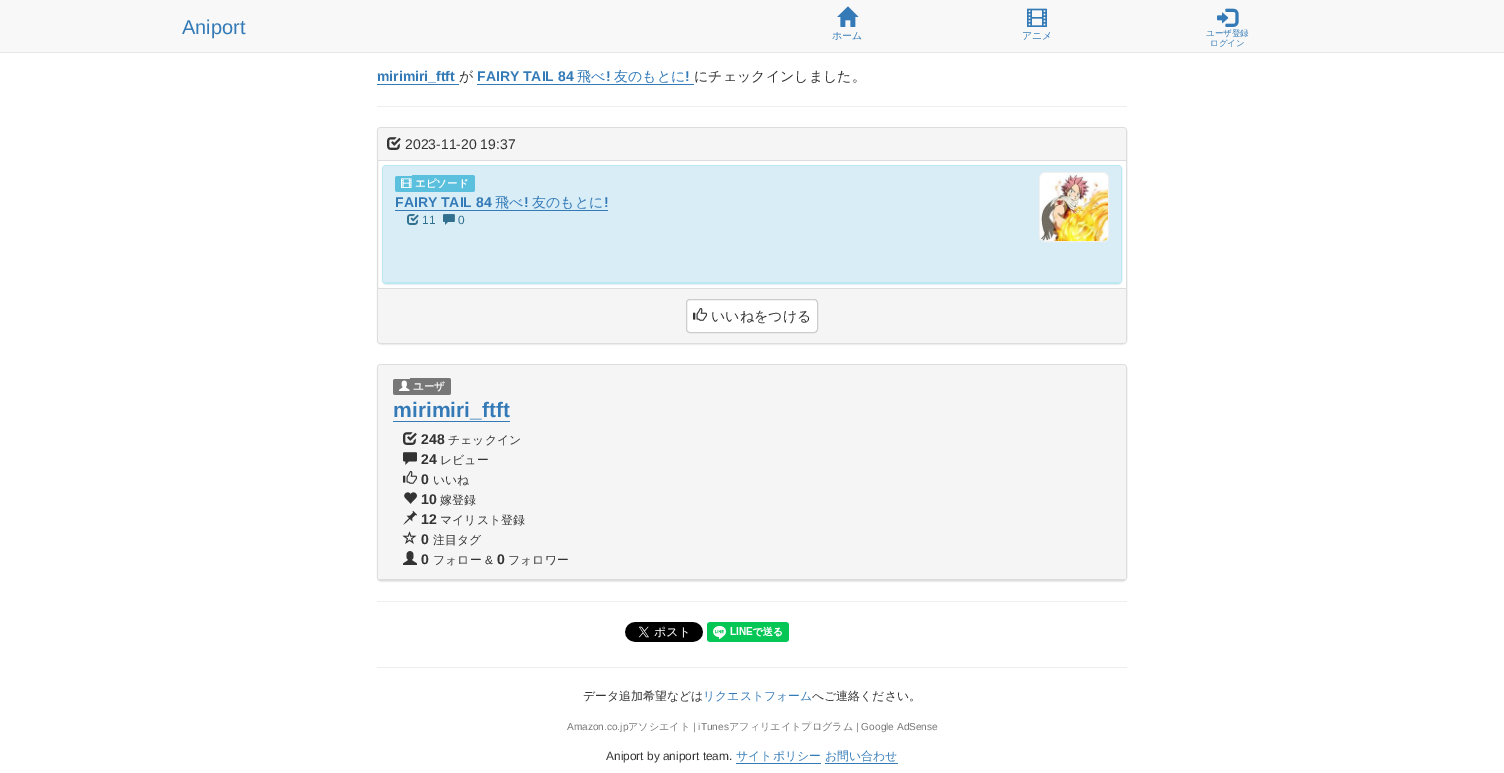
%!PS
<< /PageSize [1504 773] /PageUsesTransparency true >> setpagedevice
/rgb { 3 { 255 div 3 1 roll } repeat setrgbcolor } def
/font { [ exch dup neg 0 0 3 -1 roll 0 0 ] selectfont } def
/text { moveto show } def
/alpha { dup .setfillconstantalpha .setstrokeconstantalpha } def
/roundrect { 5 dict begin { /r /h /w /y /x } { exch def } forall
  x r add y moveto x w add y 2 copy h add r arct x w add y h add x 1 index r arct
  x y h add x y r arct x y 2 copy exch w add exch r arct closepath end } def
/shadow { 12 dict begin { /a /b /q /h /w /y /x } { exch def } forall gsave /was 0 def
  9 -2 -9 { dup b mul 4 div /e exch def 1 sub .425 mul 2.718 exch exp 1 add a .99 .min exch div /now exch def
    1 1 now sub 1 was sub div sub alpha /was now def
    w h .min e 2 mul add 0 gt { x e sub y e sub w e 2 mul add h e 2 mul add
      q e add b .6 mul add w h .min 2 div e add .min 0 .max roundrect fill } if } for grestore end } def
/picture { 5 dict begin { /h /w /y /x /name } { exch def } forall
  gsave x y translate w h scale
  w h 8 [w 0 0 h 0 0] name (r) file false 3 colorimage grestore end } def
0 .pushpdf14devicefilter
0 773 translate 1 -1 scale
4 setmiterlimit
255 255 255 rgb
0 0 1504 773 rectfill
248 248 248 rgb
0 0 1504 52 rectfill
231 231 231 rgb
0 52 1504 1 rectfill
(img_01.rgb) 837 6 22 21 picture
(img_02.rgb) 1027 8 20 19 picture
(img_03.rgb) 1217 8 22 19 picture
51 122 183 rgb
377 84 82 1 rectfill
477 84 217 1 rectfill
238 238 238 rgb
377 106 750 1 rectfill
0 0 0 rgb
377 128 750 217 4 0.5 0.05 shadow
255 255 255 rgb
377.5 127.5 749 216 3.5 roundrect gsave fill grestore
221 221 221 rgb
stroke
245 245 245 rgb
381 128 moveto 742 0 rlineto 1.5 0 3 1.5 3 3 rcurveto 0 30 rlineto -748 0 rlineto 0 -30 rlineto 0 -1.5 1.5 -3 3 -3 rcurveto closepath fill
221 221 221 rgb
378 160 748 1 rectfill
(img_04.rgb) 387 137 14 13 picture
0 0 0 rgb
382 166 740 119 4 0.5 0.05 shadow
188 232 241 rgb
382.5 165.5 739 118 3.5 roundrect stroke
217 237 247 rgb
386 166 moveto 732 0 rlineto 1.5 0 3 1.5 3 3 rcurveto 0 114 rlineto -738 0 rlineto 0 -114 rlineto 0 -1.5 1.5 -3 3 -3 rcurveto closepath fill
188 232 241 rgb
383 282 738 1 rectfill
91 192 222 rgb
397.5 176 moveto 14.5 0 rlineto 0 16 rlineto -14.5 0 rlineto -1.5 0 -2.5 -1 -2.5 -2.5 rcurveto 0 -11 rlineto 0 -1.5 1 -2.5 2.5 -2.5 rcurveto closepath fill
412 175 moveto 60.5 0 rlineto 1.5 0 2.5 1 2.5 2.5 rcurveto 0 12 rlineto 0 1.5 -1 2.5 -2.5 2.5 rcurveto -60.5 0 rlineto closepath fill
(img_05.rgb) 401 178 11 10 picture
51 122 183 rgb
395 210 213 1 rectfill
(img_06.rgb) 407 214 12 11 picture
(img_07.rgb) 443 214 12 11 picture
240 240 240 rgb
1039.5 172.5 69 69 5.5 roundrect stroke
(img_08.rgb) 1040 173 68 68 picture
245 245 245 rgb
378 288 moveto 748 0 rlineto 0 52 rlineto 0 1.5 -1.5 3 -3 3 rcurveto -742 0 rlineto -1.5 0 -3 -1.5 -3 -3 rcurveto closepath fill
221 221 221 rgb
378 288 748 1 rectfill
255 255 255 rgb
686.5 299.5 131 33 3.5 roundrect gsave fill grestore
204 204 204 rgb
stroke
(img_09.rgb) 693 308 14 13 picture
0 0 0 rgb
377 365 750 217 4 0.5 0.05 shadow
221 221 221 rgb
377.5 364.5 749 216 3.5 roundrect stroke
245 245 245 rgb
381 365 moveto 742 0 rlineto 1.5 0 3 1.5 3 3 rcurveto 0 212 rlineto -748 0 rlineto 0 -212 rlineto 0 -1.5 1.5 -3 3 -3 rcurveto closepath fill
221 221 221 rgb
378 579 748 1 rectfill
119 119 119 rgb
395.5 379 moveto 14.5 0 rlineto 0 16 rlineto -14.5 0 rlineto -1.5 0 -2.5 -1 -2.5 -2.5 rcurveto 0 -11 rlineto 0 -1.5 1 -2.5 2.5 -2.5 rcurveto closepath fill
410 378 moveto 38.5 0 rlineto 1.5 0 2.5 1 2.5 2.5 rcurveto 0 12 rlineto 0 1.5 -1 2.5 -2.5 2.5 rcurveto -38.5 0 rlineto closepath fill
(img_10.rgb) 399 380 11 11 picture
51 122 183 rgb
393 421 117 1 rectfill
(img_04.rgb) 403 432 14 13 picture
(img_11.rgb) 403 452 14 13 picture
(img_12.rgb) 403 471 14 13 picture
(img_13.rgb) 404 492 13 12 picture
(img_14.rgb) 403 511 14 14 picture
(img_15.rgb) 402 531 15 13 picture
(img_16.rgb) 403 551 14 14 picture
238 238 238 rgb
377 601 750 1 rectfill
(img_17.rgb) 625 622 78 20 picture
(img_18.rgb) 707 622 82 20 picture
377 667 750 1 rectfill
51 122 183 rgb
736 763 85 1 rectfill
825 763 73 1 rectfill
/LiberationSans-Regular 20 font
(Aniport) 182 34 text
/WenQuanYiZenHei-Medium 10 font
(ホーム) 832 39 text
(アニメ) 1022 39 text
/WenQuanYiZenHei-Medium 8.5 font
(ユーザ登録) 1206 36 text
(ログイン) 1210 46 text
/LiberationSans-Bold 14 font
(mirimiri_ftft) 377 81 text
/WenQuanYiZenHei-Medium 14 font
51 51 51 rgb
(が) 459 81 text
/LiberationSans-Bold 14 font
51 122 183 rgb
(FAIRY TAIL 84) 477 81 text
/WenQuanYiZenHei-Medium 14 font
(飛べ) 577 81 text
/LiberationSans-Bold 14 font
(!) 606 81 text
/WenQuanYiZenHei-Medium 14 font
(友のもとに) 614 81 text
/LiberationSans-Bold 14 font
(!) 685 81 text
/WenQuanYiZenHei-Medium 14 font
51 51 51 rgb
(にチェックインしました。) 694 81 text
/LiberationSans-Regular 14 font
(2023-11-20 19:37) 405 149 text
/WenQuanYiZenHei-Bold 10.5 font
255 255 255 rgb
(エピソード) 415 187 text
/LiberationSans-Bold 14 font
51 122 183 rgb
(FAIRY TAIL 84) 395 207 text
/WenQuanYiZenHei-Medium 14 font
(飛べ) 495 207 text
/LiberationSans-Bold 14 font
(!) 524 207 text
/WenQuanYiZenHei-Medium 14 font
(友のもとに) 532 207 text
/LiberationSans-Bold 14 font
(!) 604 207 text
/LiberationSans-Regular 11.9 font
49 112 143 rgb
(11) 422 224 text
(0) 458 224 text
/WenQuanYiZenHei-Medium 14 font
51 51 51 rgb
(いいねをつける) 711 321 text
/WenQuanYiZenHei-Bold 10.5 font
255 255 255 rgb
(ユーザ) 413 390 text
/LiberationSans-Bold 21 font
51 122 183 rgb
(mirimiri_ftft) 393 417 text
/LiberationSans-Bold 14 font
51 51 51 rgb
(248) 421 444 text
/WenQuanYiZenHei-Medium 11.9 font
(チェックイン) 448 444 text
/LiberationSans-Bold 14 font
(24) 421 464 text
/WenQuanYiZenHei-Medium 11.9 font
(レビュー) 440 464 text
/LiberationSans-Bold 14 font
(0) 421 484 text
/WenQuanYiZenHei-Medium 11.9 font
(いいね) 433 484 text
/LiberationSans-Bold 14 font
(10) 421 504 text
/WenQuanYiZenHei-Medium 11.9 font
(嫁登録) 440 504 text
/LiberationSans-Bold 14 font
(12) 421 524 text
/WenQuanYiZenHei-Medium 11.9 font
(マイリスト登録) 440 524 text
/LiberationSans-Bold 14 font
(0) 421 544 text
/WenQuanYiZenHei-Medium 11.9 font
(注目タグ) 433 544 text
/LiberationSans-Bold 14 font
(0) 421 564 text
/WenQuanYiZenHei-Medium 11.9 font
(フォロー) 433 564 text
/LiberationSans-Regular 11.9 font
(&) 485 564 text
/LiberationSans-Bold 14 font
(0) 497 564 text
/WenQuanYiZenHei-Medium 11.9 font
(フォロワー) 508 564 text
(データ追加希望などは) 583 700 text
51 122 183 rgb
(リクエストフォーム) 703 700 text
51 51 51 rgb
(へご連絡ください。) 812 700 text
/LiberationSans-Regular 10.1 font
119 119 119 rgb
(Amazon.co.jp) 567 730 text
/WenQuanYiZenHei-Medium 10.1 font
(アソシエイト) 628 730 text
/LiberationSans-Regular 10.1 font
(| iTunes) 693 730 text
/WenQuanYiZenHei-Medium 10.1 font
(アフィリエイトプログラム) 729 730 text
/LiberationSans-Regular 10.1 font
(| Google AdSense) 856 730 text
/LiberationSans-Regular 11.9 font
51 51 51 rgb
(Aniport by aniport team.) 606 760 text
/WenQuanYiZenHei-Medium 11.9 font
51 122 183 rgb
(サイトポリシー お問い合わせ) 736 760 text
.poppdf14devicefilter showpage
